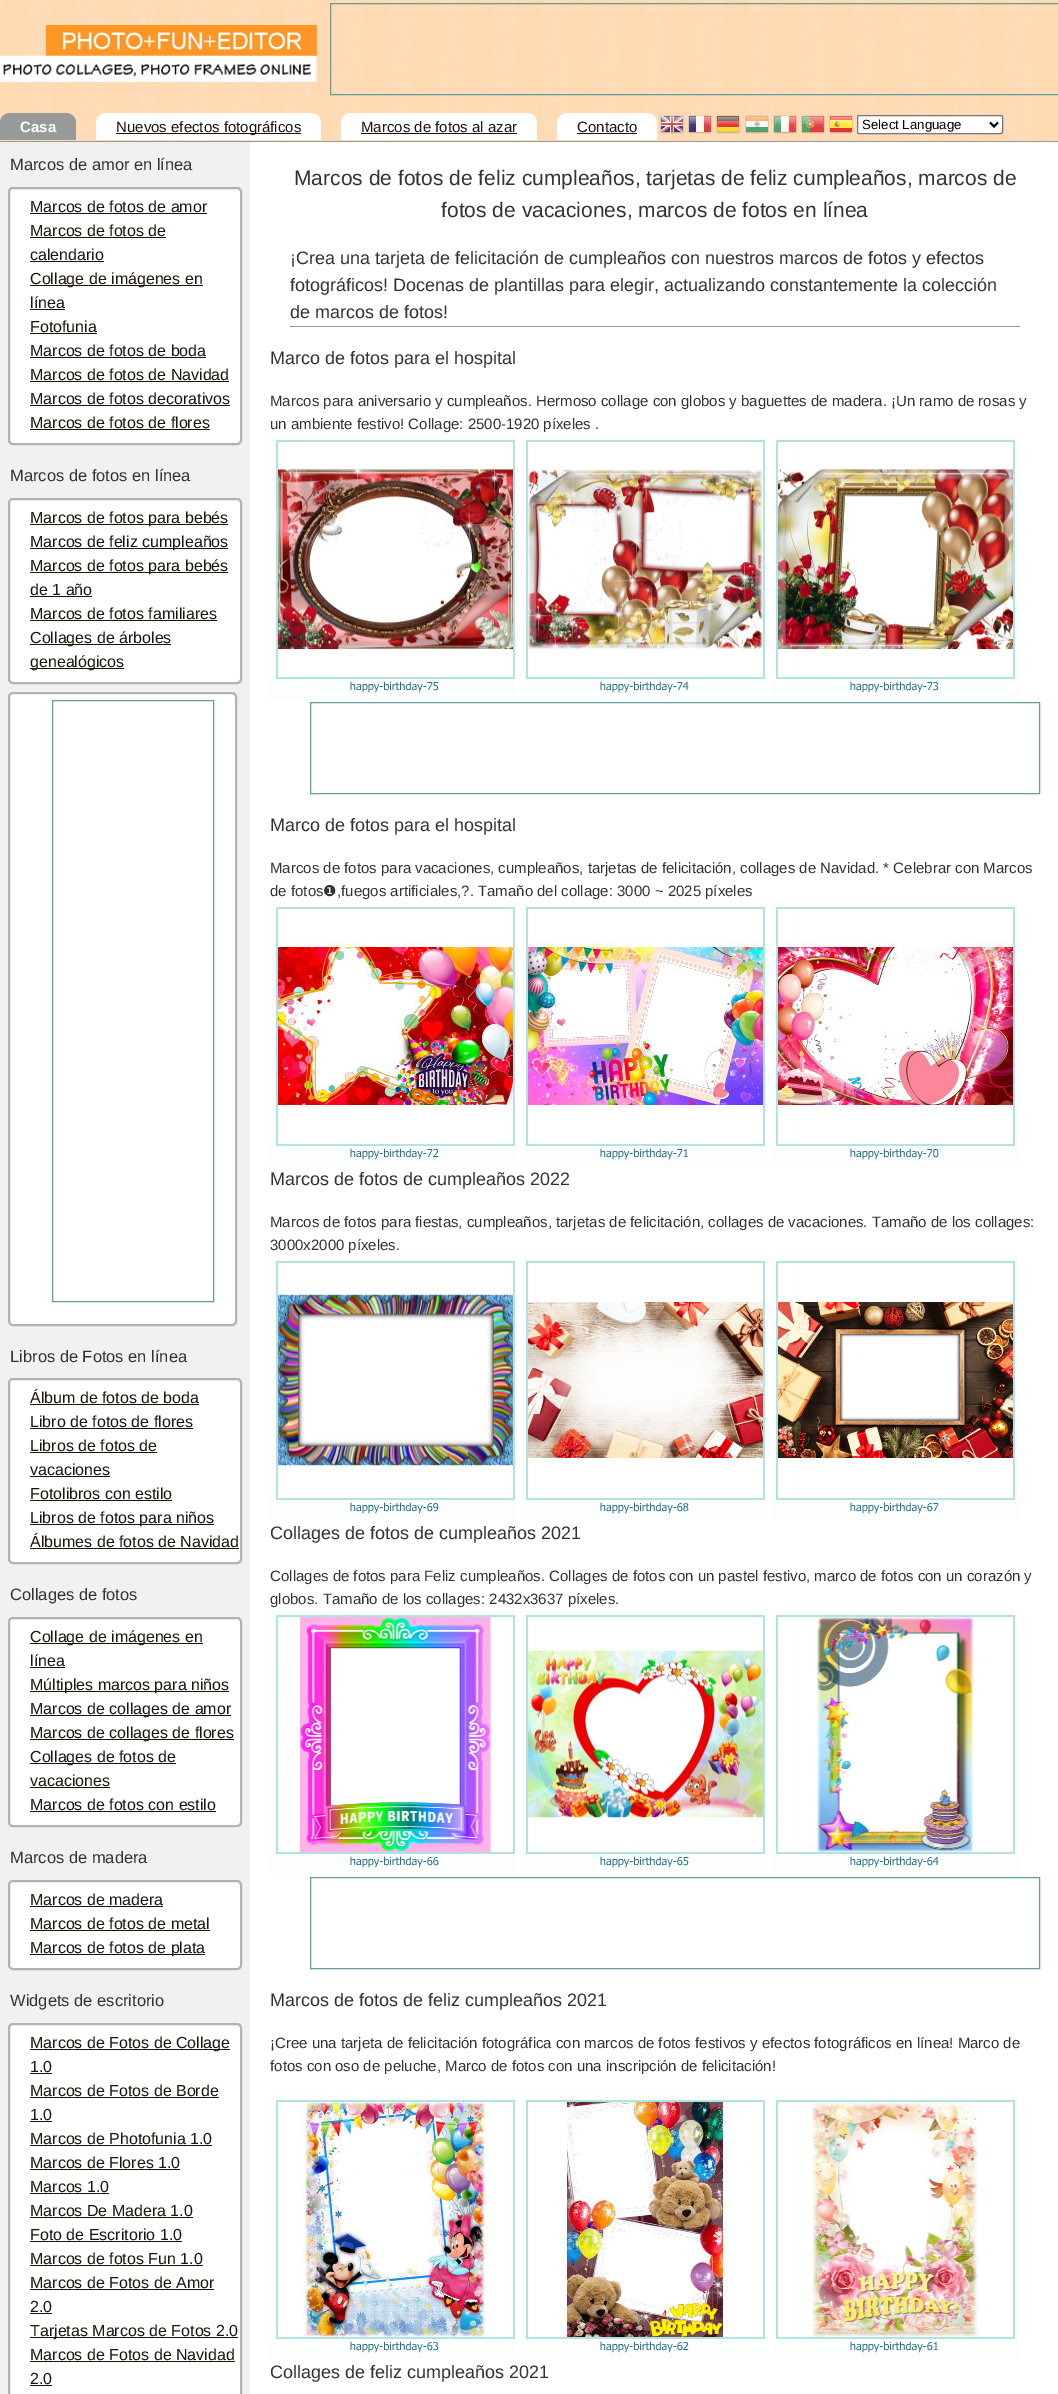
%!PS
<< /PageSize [1058 2394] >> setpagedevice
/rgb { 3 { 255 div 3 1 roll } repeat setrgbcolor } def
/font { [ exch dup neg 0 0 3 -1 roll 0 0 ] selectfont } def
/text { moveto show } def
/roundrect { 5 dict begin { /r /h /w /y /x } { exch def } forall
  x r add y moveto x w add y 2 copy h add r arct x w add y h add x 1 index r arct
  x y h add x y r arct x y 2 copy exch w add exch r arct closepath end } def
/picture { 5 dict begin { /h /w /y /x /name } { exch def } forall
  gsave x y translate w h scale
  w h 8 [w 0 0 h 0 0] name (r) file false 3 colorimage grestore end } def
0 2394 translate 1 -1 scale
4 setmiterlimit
255 255 255 rgb
0 0 1058 2394 rectfill
(img_01.rgb) 0 0 1058 141 picture
153 153 153 rgb
10 113 moveto 56 0 rlineto 5.5 0 10 4.5 10 10 rcurveto 0 17 rlineto -76 0 rlineto 0 -17 rlineto 0 -5.5 4.5 -10 10 -10 rcurveto closepath fill
255 255 255 rgb
106 113 moveto 205 0 rlineto 5.5 0 10 4.5 10 10 rcurveto 0 17 rlineto -225 0 rlineto 0 -17 rlineto 0 -5.5 4.5 -10 10 -10 rcurveto closepath fill
28 21 12 rgb
116 133 185 1 rectfill
255 255 255 rgb
351 113 moveto 176 0 rlineto 5.5 0 10 4.5 10 10 rcurveto 0 17 rlineto -196 0 rlineto 0 -17 rlineto 0 -5.5 4.5 -10 10 -10 rcurveto closepath fill
28 21 12 rgb
361 133 156 1 rectfill
255 255 255 rgb
567 113 moveto 80 0 rlineto 5.5 0 10 4.5 10 10 rcurveto 0 17 rlineto -100 0 rlineto 0 -17 rlineto 0 -5.5 4.5 -10 10 -10 rcurveto closepath fill
28 21 12 rgb
577 133 60 1 rectfill
(img_02.rgb) 0 25 317 57 picture
95 159 159 rgb
330.5 3.5 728 91 rectstroke
(img_03.rgb) 660 115 24 19 picture
(img_04.rgb) 688 115 24 19 picture
(img_05.rgb) 716 115 24 19 picture
(img_06.rgb) 745 115 24 19 picture
(img_07.rgb) 773 115 24 19 picture
(img_08.rgb) 801 115 24 19 picture
(img_09.rgb) 829 115 24 19 picture
255 255 255 rgb
857.5 115.5 145 18 1.5 roundrect gsave fill grestore
118 118 118 rgb
stroke
0 0 0 rgb
2 setlinewidth
990 122.5 moveto 4 4 rlineto 4 -4 rlineto stroke
153 153 153 rgb
0 141 1058 1 rectfill
241 241 241 rgb
0 142 250 2252 rectfill
255 255 255 rgb
9 188 232 256 4 roundrect gsave fill grestore
178 178 178 rgb
stroke
28 21 12 rgb
30 213 177 1 rectfill
30 237 136 1 rectfill
30 261 74 1 rectfill
30 285 173 1 rectfill
30 309 35 1 rectfill
30 333 67 1 rectfill
30 357 176 1 rectfill
30 381 199 1 rectfill
30 405 200 1 rectfill
30 429 180 1 rectfill
255 255 255 rgb
9 499 232 184 4 roundrect gsave fill grestore
178 178 178 rgb
stroke
28 21 12 rgb
30 524 198 1 rectfill
30 548 198 1 rectfill
30 572 198 1 rectfill
30 596 62 1 rectfill
30 620 187 1 rectfill
30 644 141 1 rectfill
30 668 94 1 rectfill
255 255 255 rgb
9 693 227 632 4 roundrect gsave fill grestore
178 178 178 rgb
stroke
95 159 159 rgb
1 setlinewidth
52.5 700.5 161 601 rectstroke
255 255 255 rgb
9 1379 232 184 4 roundrect gsave fill grestore
178 178 178 rgb
2 setlinewidth
stroke
28 21 12 rgb
30 1404 169 1 rectfill
30 1428 163 1 rectfill
30 1452 127 1 rectfill
30 1476 80 1 rectfill
30 1500 142 1 rectfill
30 1524 184 1 rectfill
30 1548 209 1 rectfill
255 255 255 rgb
9 1618 232 208 4 roundrect gsave fill grestore
178 178 178 rgb
stroke
28 21 12 rgb
30 1643 173 1 rectfill
30 1667 35 1 rectfill
30 1691 199 1 rectfill
30 1715 201 1 rectfill
30 1739 204 1 rectfill
30 1763 146 1 rectfill
30 1787 80 1 rectfill
30 1811 186 1 rectfill
255 255 255 rgb
9 1881 232 88 4 roundrect gsave fill grestore
178 178 178 rgb
stroke
28 21 12 rgb
30 1906 133 1 rectfill
30 1930 180 1 rectfill
30 1954 175 1 rectfill
255 255 255 rgb
9 2024 232 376 4 roundrect gsave fill grestore
178 178 178 rgb
stroke
28 21 12 rgb
30 2049 200 1 rectfill
30 2073 22 1 rectfill
30 2097 189 1 rectfill
30 2121 22 1 rectfill
30 2145 182 1 rectfill
30 2169 150 1 rectfill
30 2193 79 1 rectfill
30 2217 163 1 rectfill
30 2241 152 1 rectfill
30 2265 173 1 rectfill
30 2289 184 1 rectfill
30 2313 22 1 rectfill
30 2337 208 1 rectfill
30 2361 205 1 rectfill
30 2385 22 1 rectfill
153 153 153 rgb
290 326 730 1 rectfill
(img_10.rgb) 270 435 248 264 picture
(img_11.rgb) 520 435 248 264 picture
(img_12.rgb) 770 435 248 264 picture
95 159 159 rgb
1 setlinewidth
310.5 702.5 729 91 rectstroke
(img_13.rgb) 270 902 248 264 picture
(img_14.rgb) 520 902 248 264 picture
(img_15.rgb) 770 902 248 264 picture
(img_16.rgb) 270 1256 248 264 picture
(img_17.rgb) 520 1256 248 264 picture
(img_18.rgb) 770 1256 248 264 picture
(img_19.rgb) 270 1610 248 264 picture
(img_20.rgb) 520 1610 248 264 picture
(img_21.rgb) 770 1610 248 264 picture
310.5 1877.5 729 91 rectstroke
(img_22.rgb) 270 2095 248 264 picture
(img_23.rgb) 520 2095 248 264 picture
(img_24.rgb) 770 2095 248 264 picture
/LiberationSans-Bold 15 font
255 255 255 rgb
(Casa) 20 132 text
/LiberationSans-Regular 15 font
28 21 12 rgb
(Nuevos efectos fotográficos) 116 132 text
(Marcos de fotos al azar) 361 132 text
(Contacto) 577 132 text
/LiberationSans-Regular 13.25 font
0 0 0 rgb
(Select Language) 862 129 text
/LiberationSans-Regular 16.5 font
51 51 51 rgb
(Marcos de amor en línea) 10 170 text
/LiberationSans-Regular 16 font
28 21 12 rgb
(Marcos de fotos de amor) 30 212 text
(Marcos de fotos de) 30 236 text
(calendario) 30 260 text
(Collage de imágenes en) 30 284 text
(línea) 30 308 text
(Fotofunia) 30 332 text
(Marcos de fotos de boda) 30 356 text
(Marcos de fotos de Navidad) 30 380 text
(Marcos de fotos decorativos) 30 404 text
(Marcos de fotos de flores) 30 428 text
/LiberationSans-Regular 16.5 font
51 51 51 rgb
(Marcos de fotos en línea) 10 481 text
/LiberationSans-Regular 16 font
28 21 12 rgb
(Marcos de fotos para bebés) 30 523 text
(Marcos de feliz cumpleaños) 30 547 text
(Marcos de fotos para bebés) 30 571 text
(de 1 año) 30 595 text
(Marcos de fotos familiares) 30 619 text
(Collages de árboles) 30 643 text
(genealógicos) 30 667 text
/LiberationSans-Regular 16.5 font
51 51 51 rgb
(Libros de Fotos en línea) 10 1362 text
/LiberationSans-Regular 16 font
28 21 12 rgb
(Álbum de fotos de boda) 30 1403 text
(Libro de fotos de flores) 30 1427 text
(Libros de fotos de) 30 1451 text
(vacaciones) 30 1475 text
(Fotolibros con estilo) 30 1499 text
(Libros de fotos para niños) 30 1523 text
(Álbumes de fotos de Navidad) 30 1547 text
/LiberationSans-Regular 16.5 font
51 51 51 rgb
(Collages de fotos) 10 1600 text
/LiberationSans-Regular 16 font
28 21 12 rgb
(Collage de imágenes en) 30 1642 text
(línea) 30 1666 text
(Múltiples marcos para niños) 30 1690 text
(Marcos de collages de amor) 30 1714 text
(Marcos de collages de flores) 30 1738 text
(Collages de fotos de) 30 1762 text
(vacaciones) 30 1786 text
(Marcos de fotos con estilo) 30 1810 text
/LiberationSans-Regular 16.5 font
51 51 51 rgb
(Marcos de madera) 10 1863 text
/LiberationSans-Regular 16 font
28 21 12 rgb
(Marcos de madera) 30 1905 text
(Marcos de fotos de metal) 30 1929 text
(Marcos de fotos de plata) 30 1953 text
/LiberationSans-Regular 16.5 font
51 51 51 rgb
(Widgets de escritorio) 10 2006 text
/LiberationSans-Regular 16 font
28 21 12 rgb
(Marcos de Fotos de Collage) 30 2048 text
(1.0) 30 2072 text
(Marcos de Fotos de Borde) 30 2096 text
(1.0) 30 2120 text
(Marcos de Photofunia 1.0) 30 2144 text
(Marcos de Flores 1.0) 30 2168 text
(Marcos 1.0) 30 2192 text
(Marcos De Madera 1.0) 30 2216 text
(Foto de Escritorio 1.0) 30 2240 text
(Marcos de fotos Fun 1.0) 30 2264 text
(Marcos de Fotos de Amor) 30 2288 text
(2.0) 30 2312 text
(Tarjetas Marcos de Fotos 2.0) 30 2336 text
(Marcos de Fotos de Navidad) 30 2360 text
(2.0) 30 2384 text
/LiberationSans-Regular 21 font
51 51 51 rgb
(Marcos de fotos de feliz cumpleaños, tarjetas de feliz cumpleaños, marcos de) 294 185 text
(fotos de vacaciones, marcos de fotos en línea) 441 217 text
/LiberationSans-Regular 18 font
(¡Crea una tarjeta de felicitación de cumpleaños con nuestros marcos de fotos y efectos) 290 264 text
(fotográficos! Docenas de plantillas para elegir, actualizando constantemente la colección) 290 291 text
(de marcos de fotos!) 290 318 text
(Marco de fotos para el hospital) 270 364 text
/LiberationSans-Regular 15 font
(Marcos para aniversario y cumpleaños. Hermoso collage con globos y baguettes de madera. ¡Un ramo de rosas y) 270 406 text
(un ambiente festivo! Collage: 2500-1920 píxeles .) 270 429 text
/LiberationSans-Regular 18 font
(Marco de fotos para el hospital) 270 831 text
/LiberationSans-Regular 15 font
(Marcos de fotos para vacaciones, cumpleaños, tarjetas de felicitación, collages de Navidad. * Celebrar con Marcos) 270 873 text
(de fotos) 270 896 text
/DejaVuSans-Regular 15 font
(❶) 323 896 text
/LiberationSans-Regular 15 font
(,fuegos artificiales,?. Tamaño del collage: 3000 ~ 2025 píxeles) 337 896 text
/LiberationSans-Regular 18 font
(Marcos de fotos de cumpleaños 2022) 270 1185 text
/LiberationSans-Regular 15 font
(Marcos de fotos para fiestas, cumpleaños, tarjetas de felicitación, collages de vacaciones. Tamaño de los collages:) 270 1227 text
(3000x2000 píxeles.) 270 1250 text
/LiberationSans-Regular 18 font
(Collages de fotos de cumpleaños 2021) 270 1539 text
/LiberationSans-Regular 15 font
(Collages de fotos para Feliz cumpleaños. Collages de fotos con un pastel festivo, marco de fotos con un corazón y) 270 1581 text
(globos. Tamaño de los collages: 2432x3637 píxeles.) 270 1604 text
/LiberationSans-Regular 18 font
(Marcos de fotos de feliz cumpleaños 2021) 270 2006 text
/LiberationSans-Regular 15 font
(¡Cree una tarjeta de felicitación fotográfica con marcos de fotos festivos y efectos fotográficos en línea! Marco de) 270 2048 text
(fotos con oso de peluche, Marco de fotos con una inscripción de felicitación!) 270 2071 text
/LiberationSans-Regular 18 font
(Collages de feliz cumpleaños 2021) 270 2378 text
showpage
